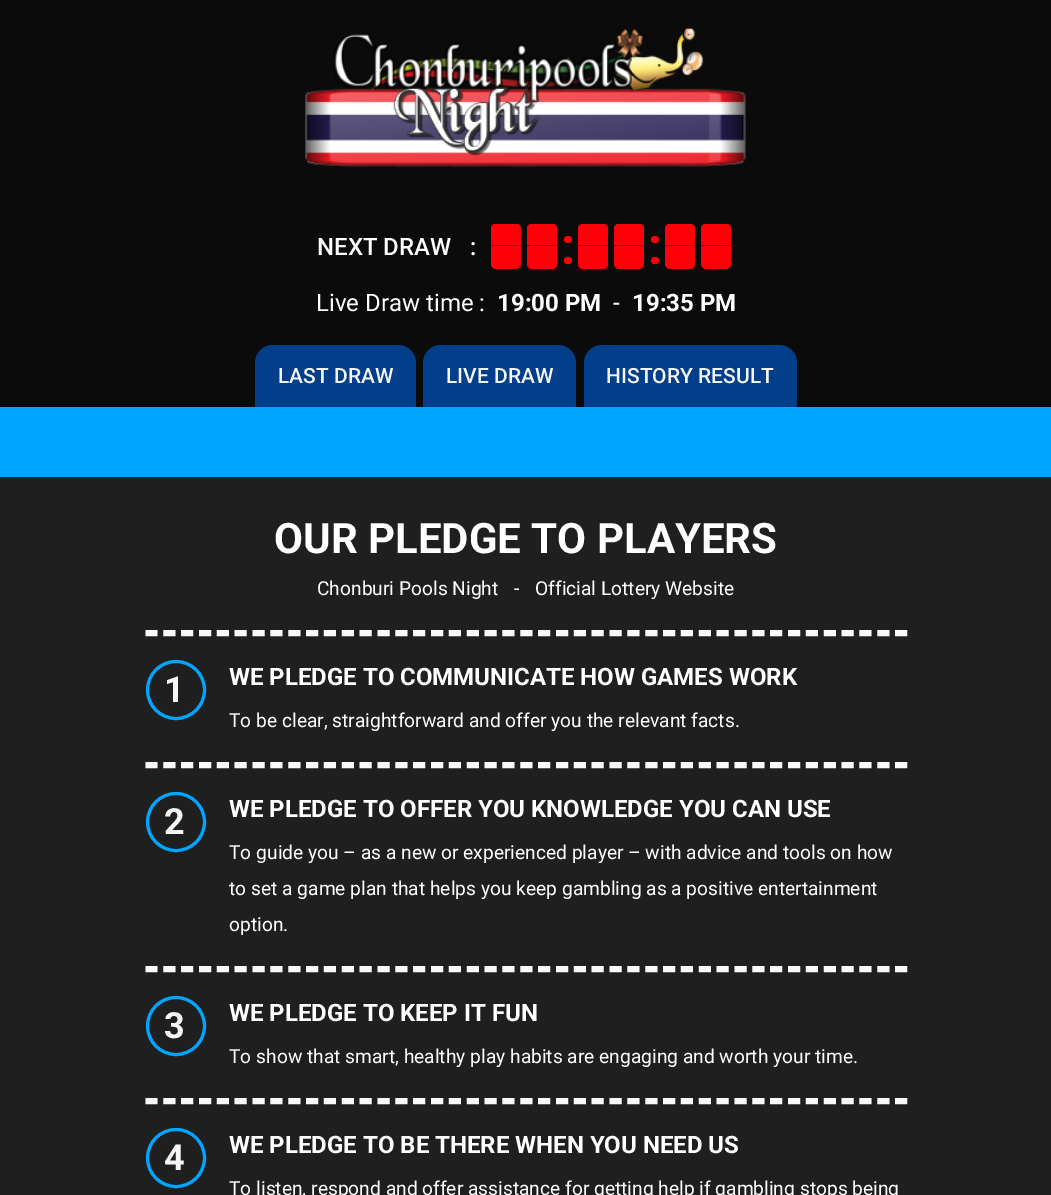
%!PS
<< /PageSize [1051 1195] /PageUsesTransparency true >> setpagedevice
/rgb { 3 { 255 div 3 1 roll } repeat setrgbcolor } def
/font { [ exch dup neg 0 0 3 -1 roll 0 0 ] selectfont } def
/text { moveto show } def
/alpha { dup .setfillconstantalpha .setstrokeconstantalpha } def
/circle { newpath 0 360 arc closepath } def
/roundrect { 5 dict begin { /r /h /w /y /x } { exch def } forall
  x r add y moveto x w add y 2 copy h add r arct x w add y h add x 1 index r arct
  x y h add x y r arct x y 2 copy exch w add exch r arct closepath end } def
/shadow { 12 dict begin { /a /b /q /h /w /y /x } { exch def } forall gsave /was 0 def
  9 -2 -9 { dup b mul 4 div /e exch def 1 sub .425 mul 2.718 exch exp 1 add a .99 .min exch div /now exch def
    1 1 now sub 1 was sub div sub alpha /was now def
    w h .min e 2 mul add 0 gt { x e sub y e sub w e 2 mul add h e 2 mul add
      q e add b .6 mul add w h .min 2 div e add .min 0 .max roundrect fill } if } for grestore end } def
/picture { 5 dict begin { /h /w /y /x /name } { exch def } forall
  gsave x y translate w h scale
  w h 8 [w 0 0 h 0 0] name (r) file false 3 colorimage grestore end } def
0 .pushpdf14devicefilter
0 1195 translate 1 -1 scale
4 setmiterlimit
11 11 11 rgb
0 0 1051 1195 rectfill
(img_01.rgb) 305 28 441 139 picture
255 0 8 rgb
491 224 30 45 5 roundrect fill
527 224 30 45 5 roundrect fill
gsave
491 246 moveto 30 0 rlineto 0 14 rlineto 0 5 -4 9 -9 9 rcurveto -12 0 rlineto -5 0 -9 -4 -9 -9 rcurveto closepath clip newpath
0 0 0 rgb
491 258 30 23 0 12 0.15 shadow
grestore
578 224 30 45 5 roundrect fill
564 236 8 7 3.5 roundrect fill
564 257 8 7 3.5 roundrect fill
gsave
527 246 moveto 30 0 rlineto 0 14 rlineto 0 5 -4 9 -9 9 rcurveto -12 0 rlineto -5 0 -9 -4 -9 -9 rcurveto closepath clip newpath
0 0 0 rgb
527 258 30 23 0 12 0.15 shadow
grestore
496 224 moveto 20 0 rlineto 3 0 5 2 5 5 rcurveto 0 17 rlineto -30 0 rlineto 0 -17 rlineto 0 -3 2 -5 5 -5 rcurveto closepath fill
0.4 alpha
0 0 0 rgb
491 245 30 1 rectfill
1 alpha
255 0 8 rgb
491 246 moveto 30 0 rlineto 0 14 rlineto 0 5 -4 9 -9 9 rcurveto -12 0 rlineto -5 0 -9 -4 -9 -9 rcurveto closepath fill
614 224 30 45 5 roundrect fill
gsave
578 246 moveto 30 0 rlineto 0 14 rlineto 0 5 -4 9 -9 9 rcurveto -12 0 rlineto -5 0 -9 -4 -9 -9 rcurveto closepath clip newpath
0 0 0 rgb
578 258 30 23 0 12 0.15 shadow
grestore
532 224 moveto 20 0 rlineto 3 0 5 2 5 5 rcurveto 0 17 rlineto -30 0 rlineto 0 -17 rlineto 0 -3 2 -5 5 -5 rcurveto closepath fill
0.4 alpha
0 0 0 rgb
527 245 30 1 rectfill
1 alpha
255 0 8 rgb
527 246 moveto 30 0 rlineto 0 14 rlineto 0 5 -4 9 -9 9 rcurveto -12 0 rlineto -5 0 -9 -4 -9 -9 rcurveto closepath fill
665 224 30 45 5 roundrect fill
651 236 8 7 3.5 roundrect fill
651 257 8 7 3.5 roundrect fill
gsave
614 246 moveto 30 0 rlineto 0 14 rlineto 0 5 -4 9 -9 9 rcurveto -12 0 rlineto -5 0 -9 -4 -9 -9 rcurveto closepath clip newpath
0 0 0 rgb
614 258 30 23 0 12 0.15 shadow
grestore
583 224 moveto 20 0 rlineto 3 0 5 2 5 5 rcurveto 0 17 rlineto -30 0 rlineto 0 -17 rlineto 0 -3 2 -5 5 -5 rcurveto closepath fill
0.4 alpha
0 0 0 rgb
578 245 30 1 rectfill
1 alpha
255 0 8 rgb
578 246 moveto 30 0 rlineto 0 14 rlineto 0 5 -4 9 -9 9 rcurveto -12 0 rlineto -5 0 -9 -4 -9 -9 rcurveto closepath fill
701 224 30 45 5 roundrect fill
gsave
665 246 moveto 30 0 rlineto 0 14 rlineto 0 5 -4 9 -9 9 rcurveto -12 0 rlineto -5 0 -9 -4 -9 -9 rcurveto closepath clip newpath
0 0 0 rgb
665 258 30 23 0 12 0.15 shadow
grestore
619 224 moveto 20 0 rlineto 3 0 5 2 5 5 rcurveto 0 17 rlineto -30 0 rlineto 0 -17 rlineto 0 -3 2 -5 5 -5 rcurveto closepath fill
0.4 alpha
0 0 0 rgb
614 245 30 1 rectfill
1 alpha
255 0 8 rgb
614 246 moveto 30 0 rlineto 0 14 rlineto 0 5 -4 9 -9 9 rcurveto -12 0 rlineto -5 0 -9 -4 -9 -9 rcurveto closepath fill
gsave
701 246 moveto 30 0 rlineto 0 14 rlineto 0 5 -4 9 -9 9 rcurveto -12 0 rlineto -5 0 -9 -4 -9 -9 rcurveto closepath clip newpath
0 0 0 rgb
701 258 30 23 0 12 0.15 shadow
grestore
670 224 moveto 20 0 rlineto 3 0 5 2 5 5 rcurveto 0 17 rlineto -30 0 rlineto 0 -17 rlineto 0 -3 2 -5 5 -5 rcurveto closepath fill
0.4 alpha
0 0 0 rgb
665 245 30 1 rectfill
1 alpha
255 0 8 rgb
665 246 moveto 30 0 rlineto 0 14 rlineto 0 5 -4 9 -9 9 rcurveto -12 0 rlineto -5 0 -9 -4 -9 -9 rcurveto closepath fill
706 224 moveto 20 0 rlineto 3 0 5 2 5 5 rcurveto 0 17 rlineto -30 0 rlineto 0 -17 rlineto 0 -3 2 -5 5 -5 rcurveto closepath fill
0.4 alpha
0 0 0 rgb
701 245 30 1 rectfill
1 alpha
255 0 8 rgb
701 246 moveto 30 0 rlineto 0 14 rlineto 0 5 -4 9 -9 9 rcurveto -12 0 rlineto -5 0 -9 -4 -9 -9 rcurveto closepath fill
2 62 138 rgb
273 345 moveto 125 0 rlineto 10 0 18 8 18 18 rcurveto 0 44 rlineto -161 0 rlineto 0 -44 rlineto 0 -10 8 -18 18 -18 rcurveto closepath fill
441 345 moveto 117 0 rlineto 10 0 18 8 18 18 rcurveto 0 44 rlineto -153 0 rlineto 0 -44 rlineto 0 -10 8 -18 18 -18 rcurveto closepath fill
602 345 moveto 177 0 rlineto 10 0 18 8 18 18 rcurveto 0 44 rlineto -213 0 rlineto 0 -44 rlineto 0 -10 8 -18 18 -18 rcurveto closepath fill
0 166 255 rgb
0 407 1051 70 rectfill
31 31 31 rgb
0 477 1051 718 rectfill
248 249 250 rgb
6 setlinewidth
[12 5.85] 0 setdash
145.5 633 moveto 762 0 rlineto stroke
0 166 255 rgb
3 setlinewidth
[] 0 setdash
176 690 28.5 circle stroke
248 249 250 rgb
6 setlinewidth
[12 5.85] 0 setdash
145.5 765 moveto 762 0 rlineto stroke
0 166 255 rgb
3 setlinewidth
[] 0 setdash
176 822 28.5 circle stroke
248 249 250 rgb
6 setlinewidth
[12 5.85] 0 setdash
145.5 969 moveto 762 0 rlineto stroke
0 166 255 rgb
3 setlinewidth
[] 0 setdash
176 1026 28.5 circle stroke
248 249 250 rgb
6 setlinewidth
[12 5.85] 0 setdash
145.5 1101 moveto 762 0 rlineto stroke
0 166 255 rgb
3 setlinewidth
[] 0 setdash
176 1158 28.5 circle stroke
/Roboto-Medium 24 font
255 255 255 rgb
(NEXT DRAW) 317 255 text
(:) 470 255 text
/Roboto-Regular 24 font
(Live Draw time :) 316 311 text
/Roboto-Bold 24 font
(19:00 PM) 497 311 text
/Roboto-Regular 24 font
(-) 613 311 text
/Roboto-Bold 24 font
(19:35 PM) 632 311 text
/Roboto-Medium 21 font
245 245 245 rgb
(LAST DRAW) 278 383 text
(LIVE DRAW) 446 383 text
(HISTORY RESULT) 606 383 text
/Roboto-Bold 42 font
255 255 255 rgb
(OUR PLEDGE TO PLAYERS) 274 553 text
/Roboto-Regular 19.2 font
(Chonburi Pools Night) 317 595 text
(-) 514 595 text
(Official Lottery Website) 535 595 text
/Roboto-Bold 36 font
245 245 245 rgb
(1) 164 702 text
/Roboto-Bold 24 font
255 255 255 rgb
(WE PLEDGE TO COMMUNICATE HOW GAMES WORK) 229 685 text
/Roboto-Regular 19.2 font
(To be clear, straightforward and offer you the relevant facts.) 229 727 text
/Roboto-Bold 36 font
245 245 245 rgb
(2) 164 834 text
/Roboto-Bold 24 font
255 255 255 rgb
(WE PLEDGE TO OFFER YOU KNOWLEDGE YOU CAN USE) 229 817 text
/Roboto-Regular 19.2 font
(To guide you – as a new or experienced player – with advice and tools on how) 229 859 text
(to set a game plan that helps you keep gambling as a positive entertainment) 229 895 text
(option.) 229 931 text
/Roboto-Bold 36 font
245 245 245 rgb
(3) 164 1038 text
/Roboto-Bold 24 font
255 255 255 rgb
(WE PLEDGE TO KEEP IT FUN) 229 1021 text
/Roboto-Regular 19.2 font
(To show that smart, healthy play habits are engaging and worth your time.) 229 1063 text
/Roboto-Bold 36 font
245 245 245 rgb
(4) 164 1170 text
/Roboto-Bold 24 font
255 255 255 rgb
(WE PLEDGE TO BE THERE WHEN YOU NEED US) 229 1153 text
/Roboto-Regular 19.2 font
(To listen, respond and offer assistance for getting help if gambling stops being) 229 1195 text
.poppdf14devicefilter showpage
